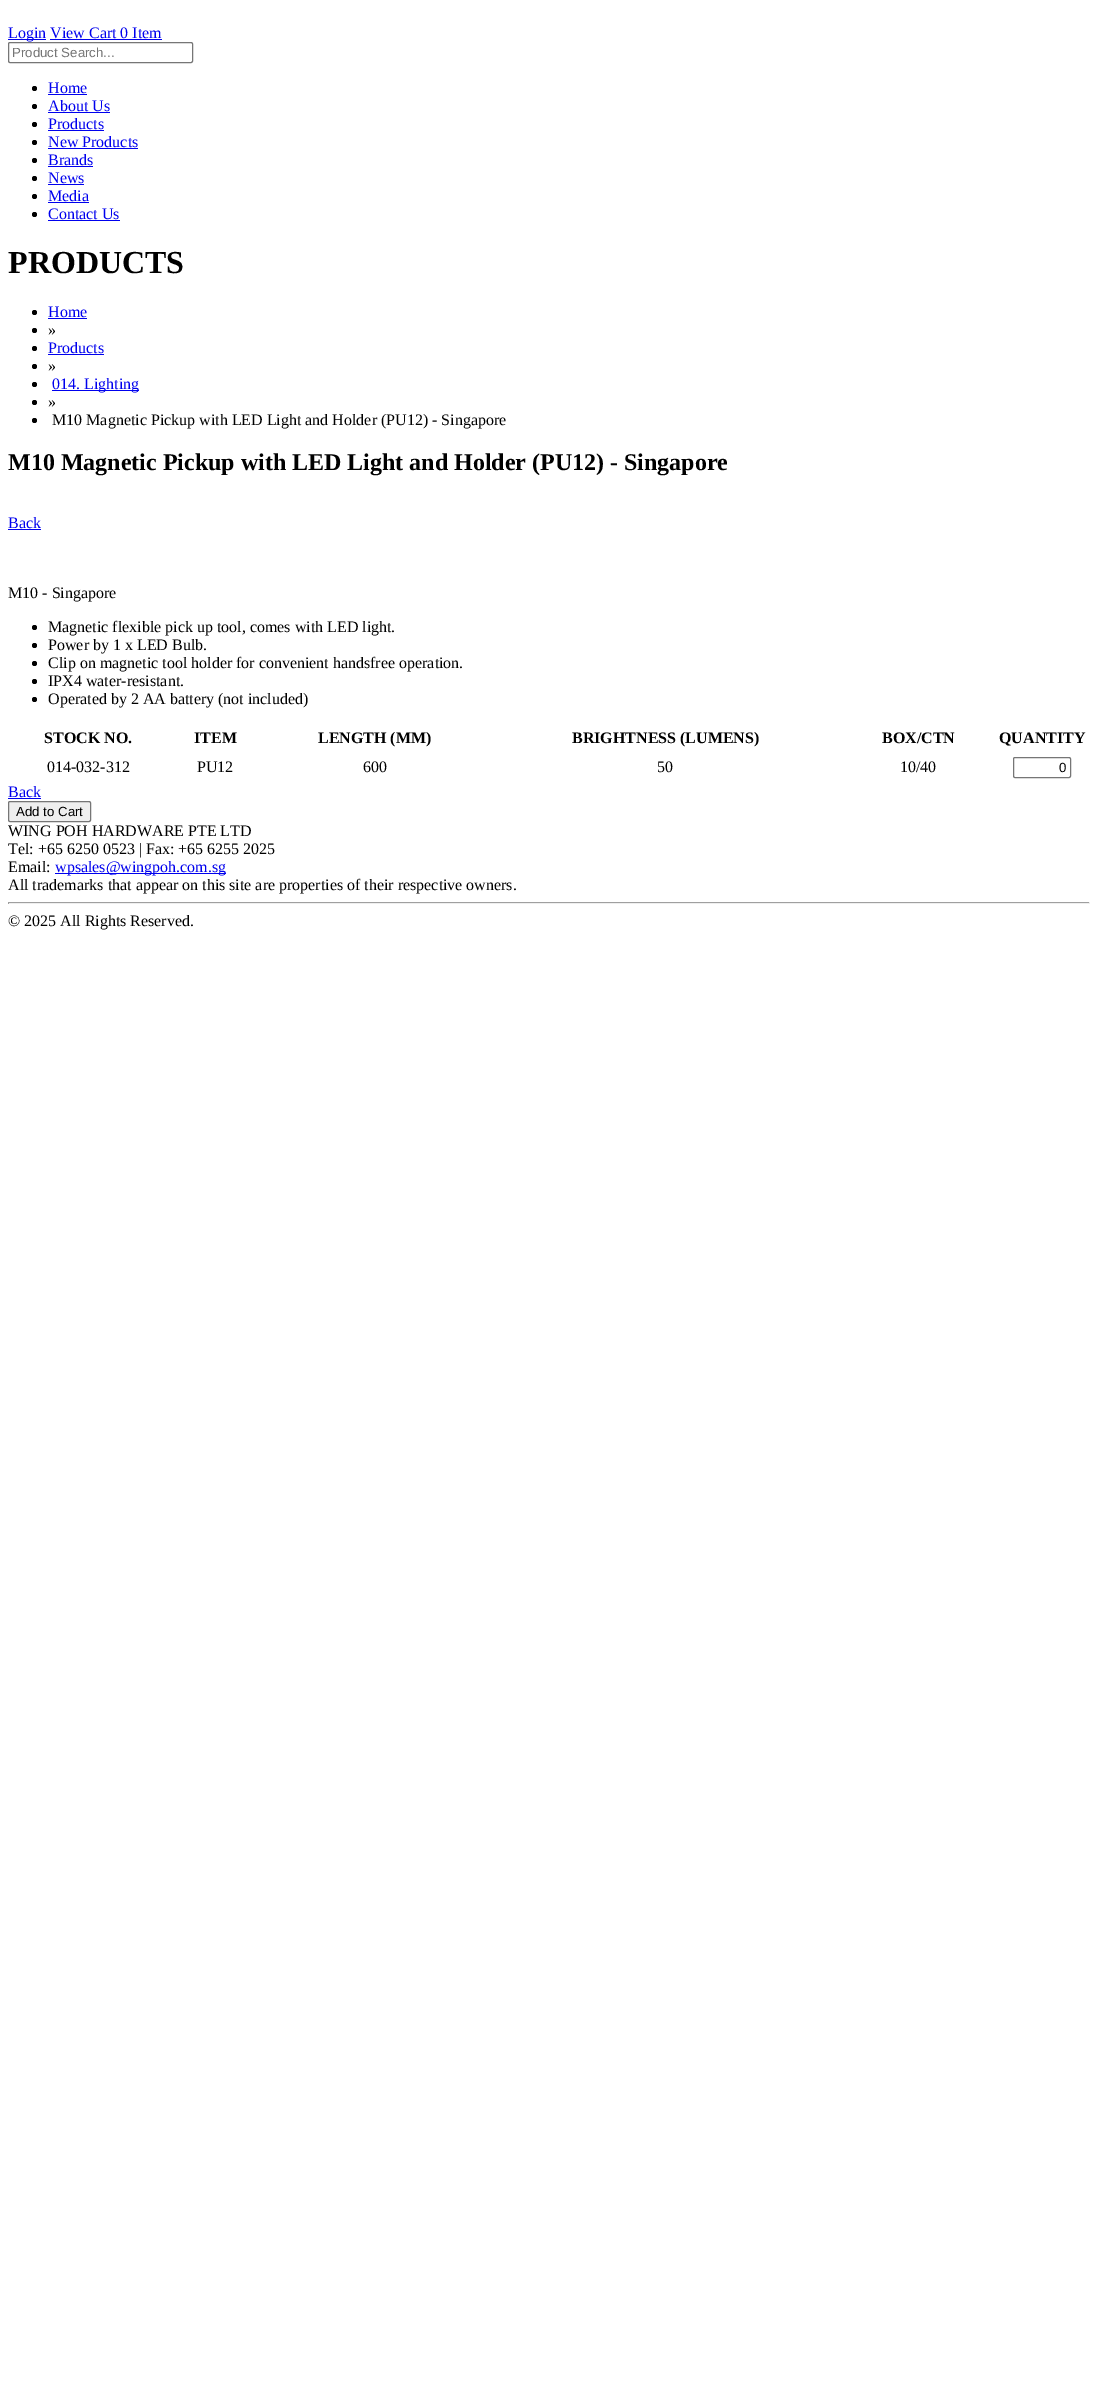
%!PS
<< /PageSize [1098 2387] >> setpagedevice
/rgb { 3 { 255 div 3 1 roll } repeat setrgbcolor } def
/font { [ exch dup neg 0 0 3 -1 roll 0 0 ] selectfont } def
/text { moveto show } def
/circle { newpath 0 360 arc closepath } def
/roundrect { 5 dict begin { /r /h /w /y /x } { exch def } forall
  x r add y moveto x w add y 2 copy h add r arct x w add y h add x 1 index r arct
  x y h add x y r arct x y 2 copy exch w add exch r arct closepath end } def
0 2387 translate 1 -1 scale
4 setmiterlimit
255 255 255 rgb
0 0 1098 2387 rectfill
0 0 238 rgb
8 39 38 1 rectfill
50 39 112 1 rectfill
118 118 118 rgb
8.5 42.5 184 20 1.5 roundrect stroke
0 0 0 rgb
34.5 88.5 2.5 circle fill
0 0 238 rgb
48 94 39 1 rectfill
0 0 0 rgb
34.5 106.5 2.5 circle fill
0 0 238 rgb
48 112 62 1 rectfill
0 0 0 rgb
34.5 124.5 2.5 circle fill
0 0 238 rgb
48 130 56 1 rectfill
0 0 0 rgb
34.5 142.5 2.5 circle fill
0 0 238 rgb
48 148 90 1 rectfill
0 0 0 rgb
34.5 160.5 2.5 circle fill
0 0 238 rgb
48 166 45 1 rectfill
0 0 0 rgb
34.5 178.5 2.5 circle fill
0 0 238 rgb
48 184 36 1 rectfill
0 0 0 rgb
34.5 196.5 2.5 circle fill
0 0 238 rgb
48 202 41 1 rectfill
0 0 0 rgb
34.5 214.5 2.5 circle fill
0 0 238 rgb
48 220 72 1 rectfill
0 0 0 rgb
34.5 312.5 2.5 circle fill
0 0 238 rgb
48 318 39 1 rectfill
0 0 0 rgb
34.5 330.5 2.5 circle fill
34.5 348.5 2.5 circle fill
0 0 238 rgb
48 354 56 1 rectfill
0 0 0 rgb
34.5 366.5 2.5 circle fill
34.5 384.5 2.5 circle fill
0 0 238 rgb
52 390 87 1 rectfill
0 0 0 rgb
34.5 402.5 2.5 circle fill
34.5 420.5 2.5 circle fill
0 0 238 rgb
8 529 33 1 rectfill
0 0 0 rgb
34.5 627.5 2.5 circle fill
34.5 645.5 2.5 circle fill
34.5 663.5 2.5 circle fill
34.5 681.5 2.5 circle fill
34.5 699.5 2.5 circle fill
118 118 118 rgb
1013.5 757.5 57 20 1.5 roundrect stroke
0 0 238 rgb
8 798 33 1 rectfill
239 239 239 rgb
8.5 801.5 82 20 1.5 roundrect gsave fill grestore
118 118 118 rgb
stroke
0 0 238 rgb
55 873 171 1 rectfill
159 159 159 rgb
8 902 1082 1 rectfill
238 238 238 rgb
1089 902 1 2 rectfill
8 903 1082 1 rectfill
159 159 159 rgb
8 902 1 2 rectfill
/LiberationSerif-Regular 16 font
0 0 238 rgb
(Login View Cart 0 Item) 8 38 text
/LiberationSans-Regular 13.25 font
117 117 117 rgb
(Product Search...) 12 57 text
/LiberationSerif-Regular 16 font
0 0 238 rgb
(Home) 48 93 text
(About Us) 48 111 text
(Products) 48 129 text
(New Products) 48 147 text
(Brands) 48 165 text
(News) 48 183 text
(Media) 48 201 text
(Contact Us) 48 219 text
/LiberationSerif-Bold 32 font
0 0 0 rgb
(PRODUCTS) 8 273 text
/LiberationSerif-Regular 16 font
0 0 238 rgb
(Home) 48 317 text
0 0 0 rgb
(») 48 335 text
0 0 238 rgb
(Products) 48 353 text
0 0 0 rgb
(») 48 371 text
0 0 238 rgb
(014. Lighting) 52 389 text
0 0 0 rgb
(») 48 407 text
(M10 Magnetic Pickup with LED Light and Holder \(PU12\) - Singapore) 52 425 text
/LiberationSerif-Bold 24 font
(M10 Magnetic Pickup with LED Light and Holder \(PU12\) - Singapore) 8 470 text
/LiberationSerif-Regular 16 font
0 0 238 rgb
(Back) 8 528 text
0 0 0 rgb
(M10 - Singapore) 8 598 text
(Magnetic flexible pick up tool, comes with LED light.) 48 632 text
(Power by 1 x LED Bulb.) 48 650 text
(Clip on magnetic tool holder for convenient handsfree operation.) 48 668 text
(IPX4 water-resistant.) 48 686 text
(Operated by 2 AA battery \(not included\)) 48 704 text
/LiberationSerif-Bold 16 font
(STOCK NO.) 44 743 text
(ITEM) 194 743 text
(LENGTH \(MM\)) 318 743 text
(BRIGHTNESS \(LUMENS\)) 572 743 text
(BOX/CTN) 882 743 text
(QUANTITY) 999 743 text
/LiberationSerif-Regular 16 font
(014-032-312) 47 772 text
(PU12) 197 772 text
(600) 363 772 text
(50) 657 772 text
(10/40) 900 772 text
/LiberationSans-Regular 13.25 font
(0) 1059 772 text
/LiberationSerif-Regular 16 font
0 0 238 rgb
(Back) 8 797 text
/LiberationSans-Regular 13.25 font
0 0 0 rgb
(Add to Cart) 16 816 text
/LiberationSerif-Regular 16 font
(WING POH HARDWARE PTE LTD) 8 836 text
(Tel: +65 6250 0523 | Fax: +65 6255 2025) 8 854 text
(Email:) 8 872 text
0 0 238 rgb
(wpsales@wingpoh.com.sg) 55 872 text
0 0 0 rgb
(All trademarks that appear on this site are properties of their respective owners.) 8 890 text
(© 2025 All Rights Reserved.) 8 926 text
showpage
